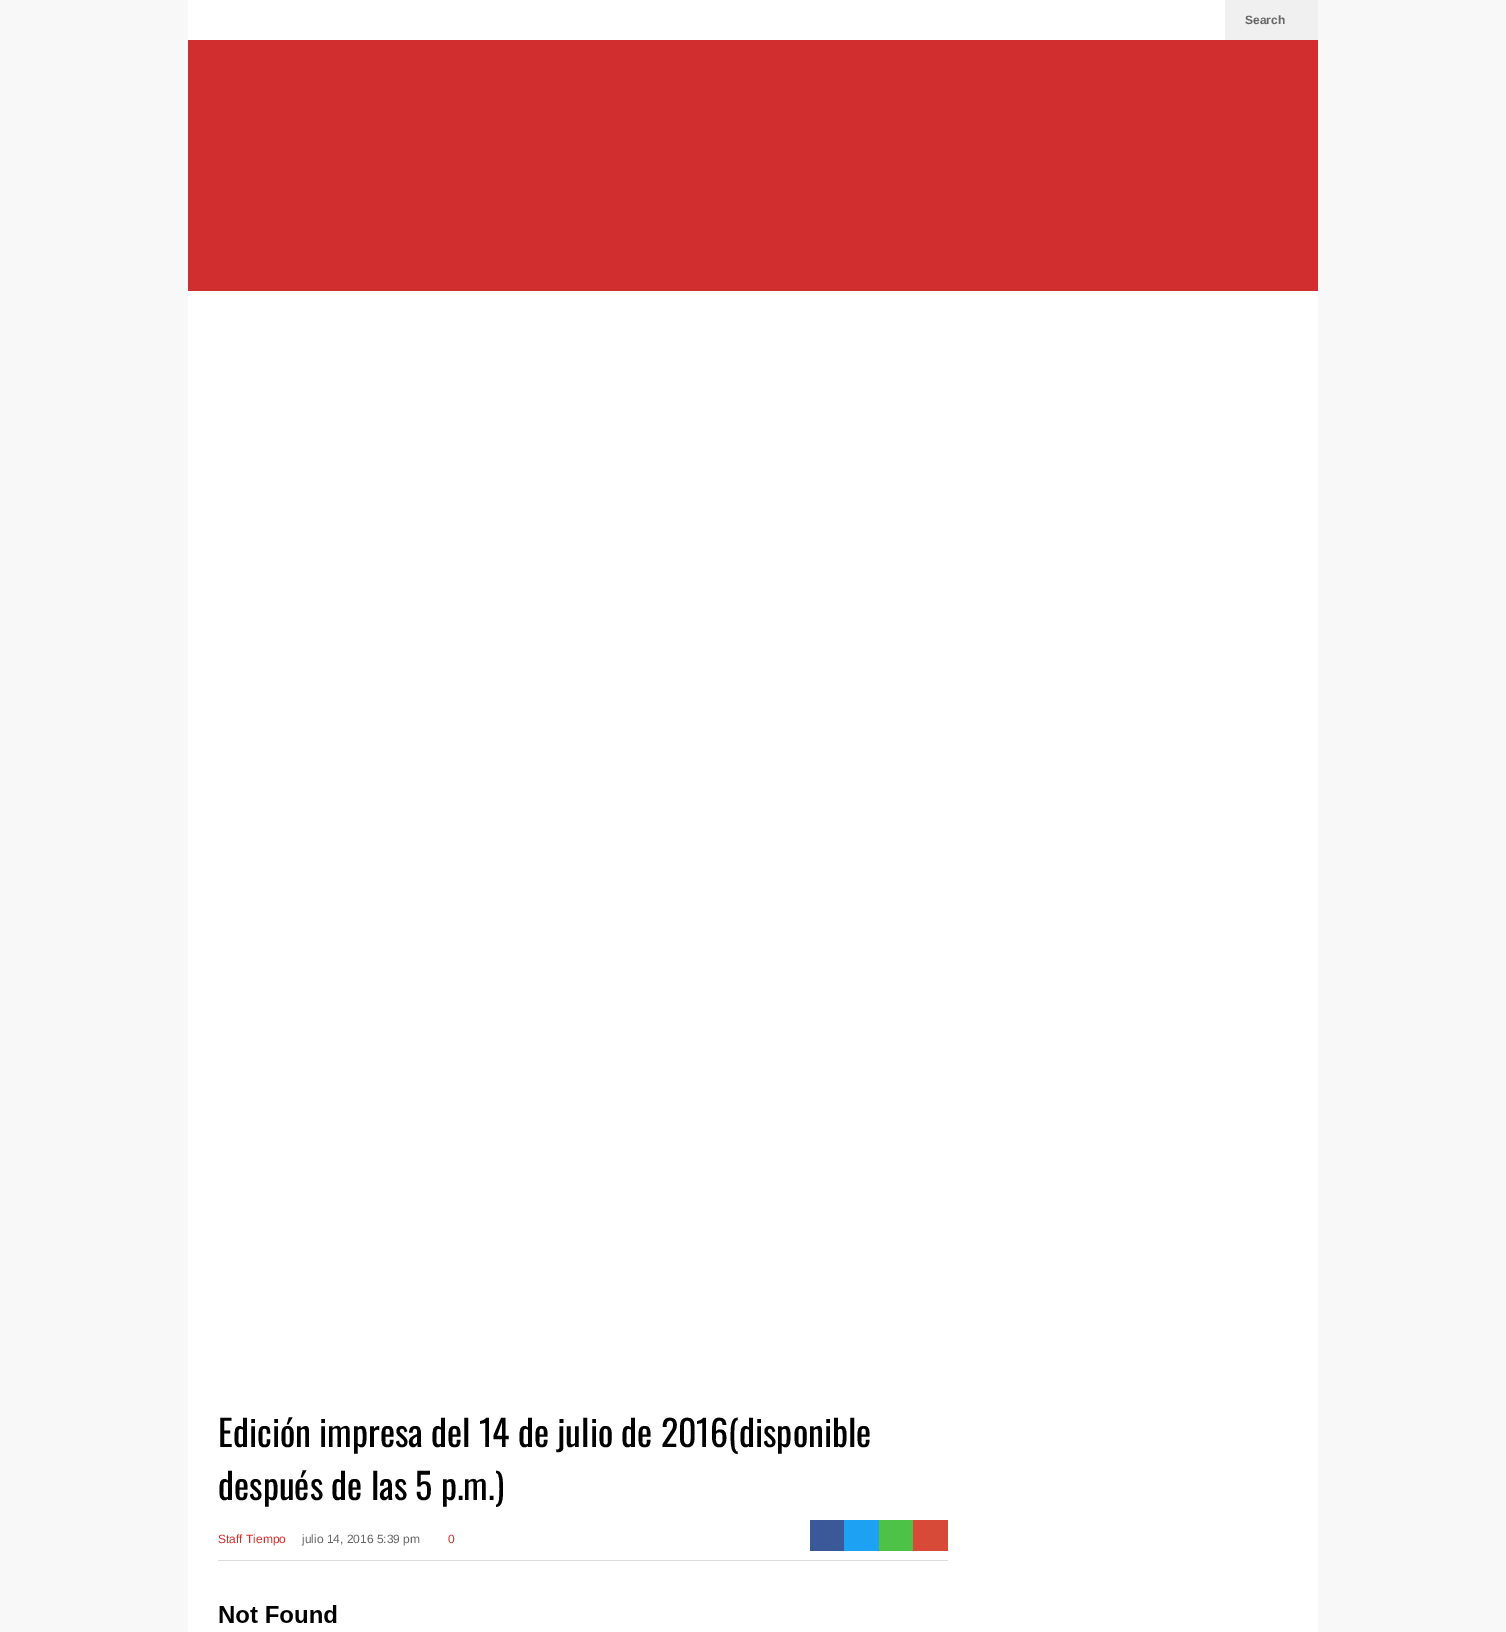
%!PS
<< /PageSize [1506 1632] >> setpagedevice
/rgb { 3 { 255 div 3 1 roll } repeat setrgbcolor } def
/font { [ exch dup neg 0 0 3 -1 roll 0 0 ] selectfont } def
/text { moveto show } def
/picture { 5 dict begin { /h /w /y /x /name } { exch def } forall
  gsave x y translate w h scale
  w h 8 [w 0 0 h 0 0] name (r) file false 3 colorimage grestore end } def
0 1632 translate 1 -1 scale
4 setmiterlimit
248 248 248 rgb
0 0 1506 1632 rectfill
255 255 255 rgb
188 0 1037 40 rectfill
240 240 240 rgb
1225 0 93 40 rectfill
209 47 47 rgb
188 40 1130 251 rectfill
255 255 255 rgb
188 291 1130 1341 rectfill
221 221 221 rgb
218 1560 730 1 rectfill
59 89 152 rgb
810 1520 34 31 rectfill
29 161 242 rgb
844 1520 35 31 rectfill
77 194 71 rgb
879 1520 34 31 rectfill
216 74 56 rgb
913 1520 35 31 rectfill
(img_01.rgb) 219 1605 118 18 picture
/LiberationSans-Bold 12 font
102 102 102 rgb
(Search) 1245 24 text
/Oswald-Regular 36 font
0 0 0 rgb
(Edición impresa del 14 de julio de 2016\(disponible) 218 1447 text
(después de las 5 p.m.\)) 218 1500 text
/LiberationSans-Regular 12 font
209 47 47 rgb
(Staff Tiempo) 218 1543 text
102 102 102 rgb
(julio 14, 2016 5:39 pm) 302 1543 text
209 47 47 rgb
(0) 448 1543 text
showpage
